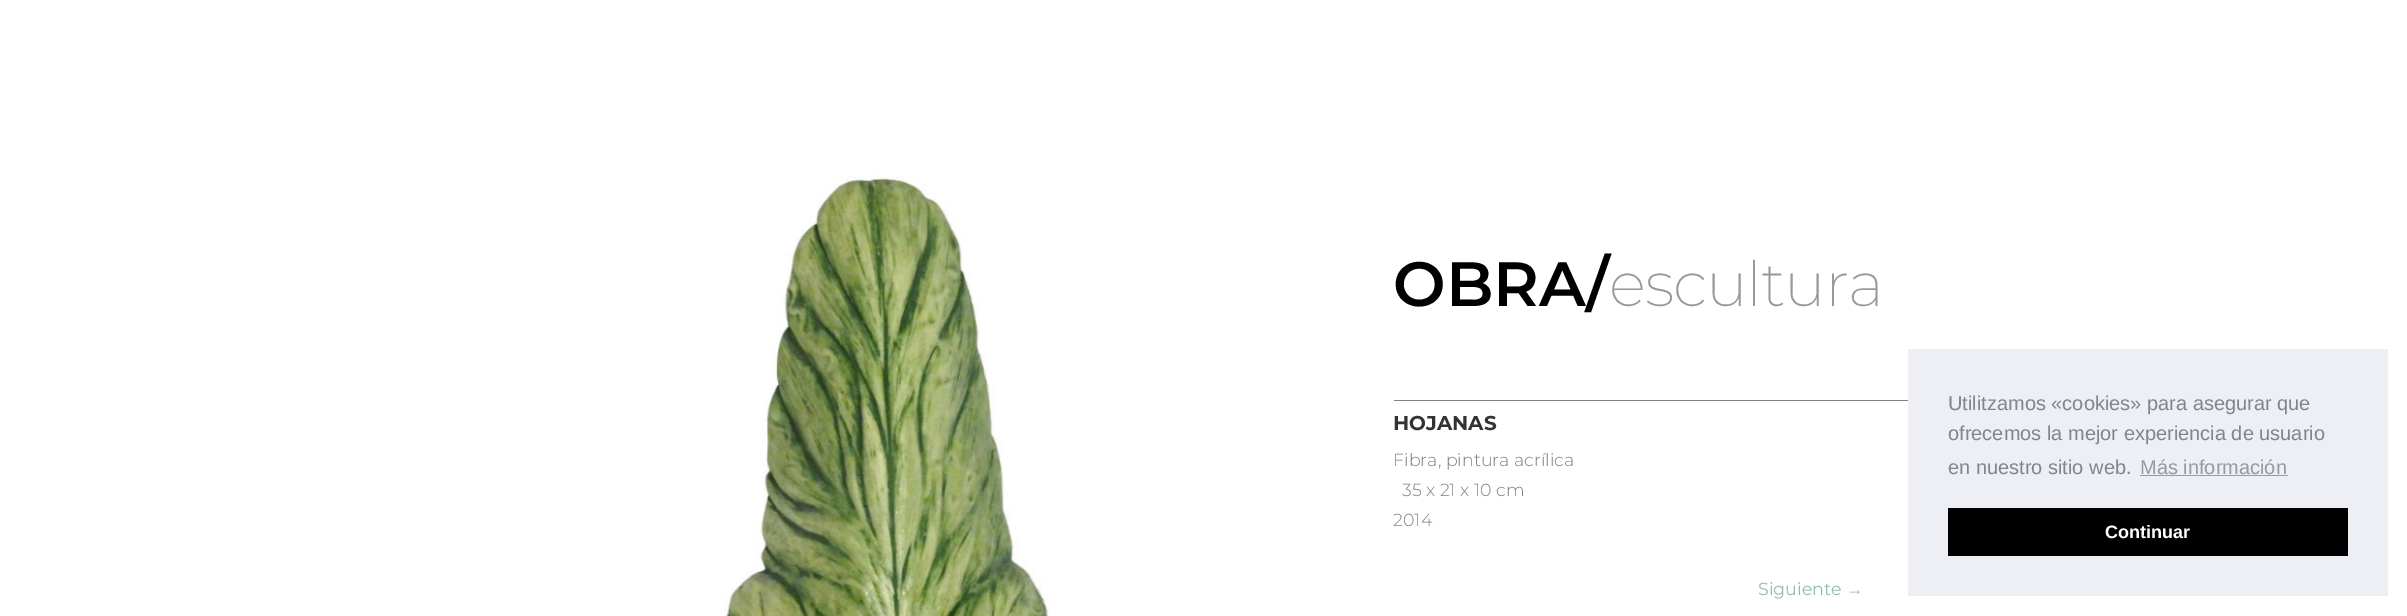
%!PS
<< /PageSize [2407 616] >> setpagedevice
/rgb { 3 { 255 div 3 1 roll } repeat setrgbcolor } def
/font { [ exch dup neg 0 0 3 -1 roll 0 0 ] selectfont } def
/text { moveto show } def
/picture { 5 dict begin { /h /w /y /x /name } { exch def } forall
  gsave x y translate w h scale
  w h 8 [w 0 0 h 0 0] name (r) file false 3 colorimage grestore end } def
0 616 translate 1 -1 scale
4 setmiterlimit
255 255 255 rgb
0 0 2407 616 rectfill
(img_01.rgb) 724 175 325 441 picture
128 128 128 rgb
1394 400 522 1 rectfill
237 239 245 rgb
1908 349 480 247 rectfill
152 153 165 rgb
2140 475 148 1 rectfill
0 0 0 rgb
1948 508 400 48 rectfill
/Montserrat-Thin 62.5 font
(OBRA/) 1393 306 text
/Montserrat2-Thin 62.5 font
153 153 153 rgb
1609 306 moveto -1.25 0 (escultura) ashow
/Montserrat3-Thin 20 font
51 51 51 rgb
(HOJANAS) 1393 430 text
/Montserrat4-Thin 17.5 font
128 128 128 rgb
(Fibra, pintura acrílica) 1393 466 text
(35 x 21 x 10 cm) 1402 496 text
(2014) 1393 526 text
/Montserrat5-Thin 17.5 font
146 188 179 rgb
(Siguiente) 1758 595 text
/LiberationSans-Regular 17.5 font
(→) 1846 595 text
/LiberationSans-Regular 20 font
131 131 145 rgb
(Utilitzamos «cookies» para asegurar que) 1948 410 text
(ofrecemos la mejor experiencia de usuario) 1948 440 text
(en nuestro sitio web.) 1948 474 text
152 153 165 rgb
(Más información) 2140 474 text
/LiberationSans-Bold 18 font
255 255 255 rgb
(Continuar) 2105 538 text
showpage
